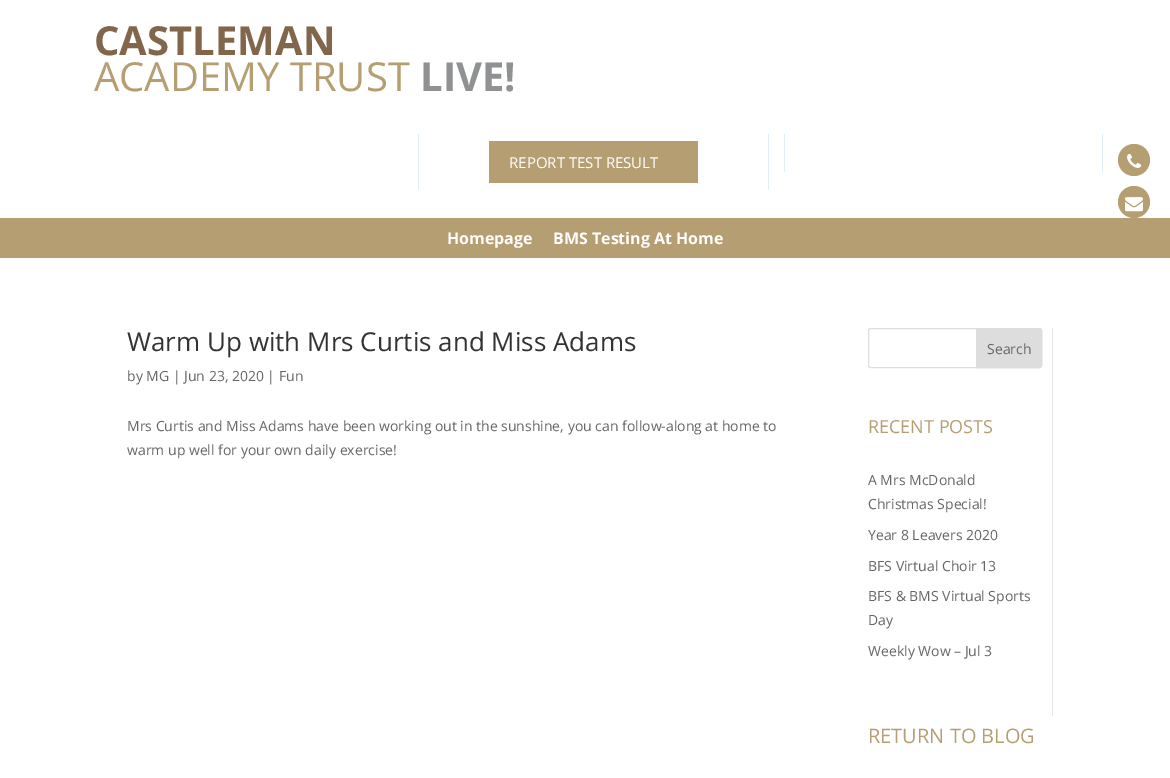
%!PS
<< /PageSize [1170 778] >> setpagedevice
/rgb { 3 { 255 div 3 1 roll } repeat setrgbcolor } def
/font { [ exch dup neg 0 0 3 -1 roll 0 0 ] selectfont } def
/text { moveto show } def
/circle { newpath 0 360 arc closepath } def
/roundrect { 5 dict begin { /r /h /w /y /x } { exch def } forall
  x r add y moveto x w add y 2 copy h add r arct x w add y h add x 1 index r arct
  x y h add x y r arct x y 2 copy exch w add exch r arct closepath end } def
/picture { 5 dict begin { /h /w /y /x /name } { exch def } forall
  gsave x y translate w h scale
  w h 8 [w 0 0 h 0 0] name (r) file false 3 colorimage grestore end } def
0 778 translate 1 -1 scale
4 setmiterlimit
255 255 255 rgb
0 0 1170 778 rectfill
223 237 246 rgb
768 134 1 56 rectfill
418 134 1 56 rectfill
181 159 114 rgb
489 141 209 42 rectfill
223 237 246 rgb
1102 134 1 38 rectfill
784 134 1 38 rectfill
181 159 114 rgb
1134 160 16 circle fill
(img_01.rgb) 1127 153 15 15 picture
1134 202 16 circle fill
(img_02.rgb) 1125 197 18 15 picture
0 218 1170 40 rectfill
230 230 230 rgb
1052 328 1 388 rectfill
221 221 221 rgb
868.5 328.5 173 39 2.5 roundrect stroke
976.5 328.5 moveto 62.5 0 rlineto 1.5 0 2.5 1 2.5 2.5 rcurveto 0 34 rlineto 0 1.5 -1 2.5 -2.5 2.5 rcurveto -62.5 0 rlineto closepath gsave fill grestore
stroke
/OpenSans-Bold 40 font
129 102 76 rgb
(CASTLEMAN) 94 55 text
/OpenSans-Regular 40 font
181 159 114 rgb
(ACADEMY TRUST) 94 91 text
/OpenSans-Bold 40 font
143 145 146 rgb
(LIVE!) 420 91 text
/OpenSans-Regular 15 font
255 255 255 rgb
(REPORT TEST RESULT) 509 168 text
/OpenSans-Bold 16 font
(Homepage) 447 244 text
(BMS Testing At Home) 553 244 text
/OpenSans-Regular 26 font
51 51 51 rgb
(Warm Up with Mrs Curtis and Miss Adams) 127 351 text
/OpenSans-Regular 14 font
102 102 102 rgb
(by MG | Jun 23, 2020 | Fun) 127 381 text
(Mrs Curtis and Miss Adams have been working out in the sunshine, you can follow-along at home to) 127 431 text
(warm up well for your own daily exercise!) 127 455 text
(Search) 987 354 text
/OpenSans-Regular 18 font
181 159 114 rgb
(RECENT POSTS) 868 433 text
/OpenSans-Regular 14 font
102 102 102 rgb
(A Mrs McDonald) 868 485 text
(Christmas Special!) 868 509 text
(Year 8 Leavers 2020) 868 540 text
(BFS Virtual Choir 13) 868 571 text
(BFS & BMS Virtual Sports) 868 601 text
(Day) 868 625 text
(Weekly Wow – Jul 3) 868 656 text
/OpenSans-Regular 20 font
181 159 114 rgb
(RETURN TO BLOG) 868 743 text
showpage
